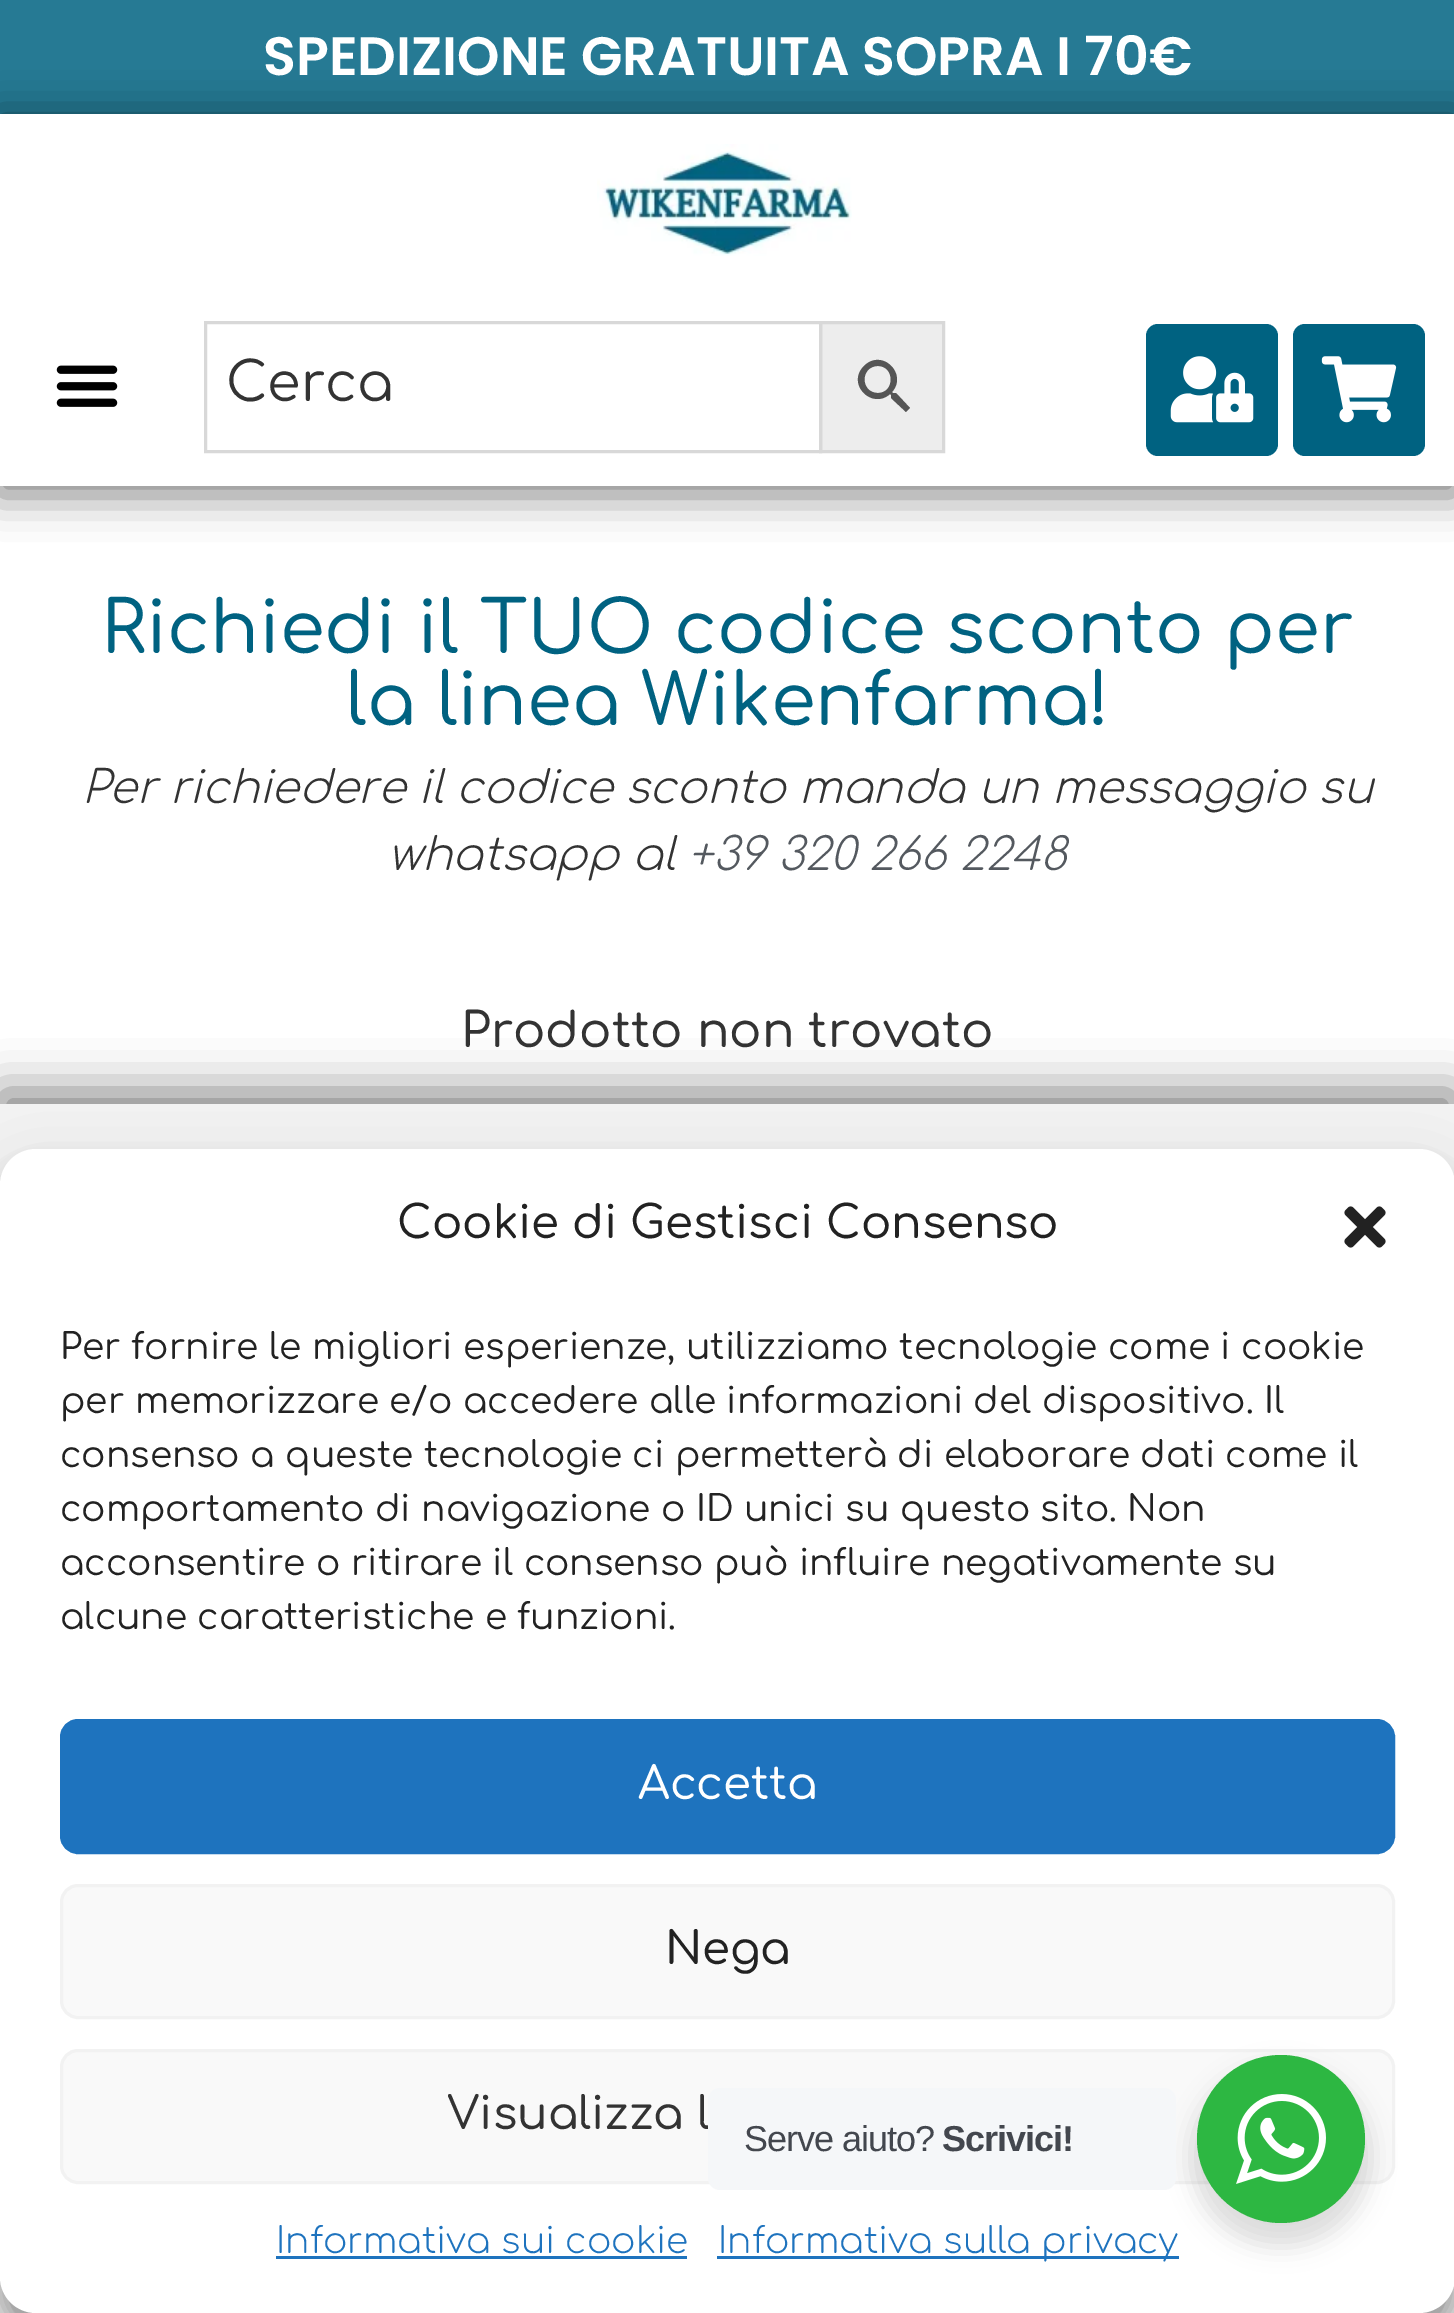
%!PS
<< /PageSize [1454 2313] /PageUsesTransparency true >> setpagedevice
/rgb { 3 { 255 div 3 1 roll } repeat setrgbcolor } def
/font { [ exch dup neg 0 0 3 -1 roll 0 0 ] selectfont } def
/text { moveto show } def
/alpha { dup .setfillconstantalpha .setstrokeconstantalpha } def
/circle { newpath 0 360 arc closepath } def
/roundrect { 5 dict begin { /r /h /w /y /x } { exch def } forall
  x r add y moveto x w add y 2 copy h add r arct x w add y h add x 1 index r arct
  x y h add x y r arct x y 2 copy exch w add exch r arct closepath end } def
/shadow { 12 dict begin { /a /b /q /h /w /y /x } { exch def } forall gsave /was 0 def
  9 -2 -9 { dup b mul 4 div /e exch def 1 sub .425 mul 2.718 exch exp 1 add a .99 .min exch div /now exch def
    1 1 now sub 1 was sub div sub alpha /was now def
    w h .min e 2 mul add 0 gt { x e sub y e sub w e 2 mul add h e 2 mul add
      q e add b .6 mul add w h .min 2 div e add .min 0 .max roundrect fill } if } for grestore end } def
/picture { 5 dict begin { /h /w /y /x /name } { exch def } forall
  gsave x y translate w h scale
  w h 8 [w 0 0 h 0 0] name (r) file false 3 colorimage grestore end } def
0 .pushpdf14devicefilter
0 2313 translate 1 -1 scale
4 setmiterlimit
255 255 255 rgb
0 0 1454 2313 rectfill
38 122 148 rgb
0 0 1454 114 rectfill
gsave
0 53 moveto 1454 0 rlineto 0 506 rlineto -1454 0 rlineto closepath 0 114 moveto 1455 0 rlineto 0 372 rlineto -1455 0 rlineto closepath eoclip newpath
0 0 0 rgb
-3 117 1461 378 0 21 0.5 shadow
grestore
(img_01.rgb) 597 144 255 112 picture
(img_02.rgb) 56 365 62 42 picture
237 237 237 rgb
820.5 322.5 moveto 123 0 rlineto 0 129 rlineto -123 0 rlineto closepath gsave fill grestore
216 216 216 rgb
3 setlinewidth
stroke
205.5 322.5 615 129 rectstroke
85 85 85 rgb
896 393 moveto -3 0 rlineto -1 -1 rlineto 16 -18 -10 -44 -28 -26 rcurveto -18 18 8 44 26 28 rcurveto 1 1 rlineto 0 3 rlineto 15 14 rlineto 4 -4 rlineto closepath 878 393 moveto -18 0 -18 -27 0 -27 rcurveto 17 0 17 27 0 27 rcurveto closepath fill
0 98 129 rgb
1146 324 132 132 12 roundrect fill
(img_03.rgb) 1170 356 84 67 picture
1293 324 132 132 12 roundrect fill
(img_04.rgb) 1321 356 76 67 picture
0 0 0 rgb
0 1092 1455 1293 0 24 0.5 shadow
242 242 242 rgb
0 1104 1454 1209 rectfill
0 0 0 rgb
0 1167 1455 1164 36 9 0.23 shadow
0 1179 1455 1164 36 30 0.19 shadow
255 255 255 rgb
0 1149 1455 1164 36 roundrect fill
(img_05.rgb) 1344 1206 42 42 picture
30 115 190 rgb
61.5 1720.5 1332 132 16.5 roundrect gsave fill grestore
stroke
249 249 249 rgb
61.5 1885.5 1332 132 16.5 roundrect gsave fill grestore
242 242 242 rgb
stroke
249 249 249 rgb
61.5 2050.5 1332 132 16.5 roundrect gsave fill grestore
242 242 242 rgb
stroke
30 115 190 rgb
276 2256 411 3 rectfill
717 2256 462 3 rectfill
0 0 0 rgb
1191 2067 180 180 90 12 0.14 shadow
45 183 66 rgb
1281 2139 84 circle fill
(img_06.rgb) 1236 2094 90 90 picture
/Poppins-SemiBold 54 font
255 255 255 rgb
(SPEDIZIONE GRATUITA SOPRA I 70€) 263 75 text
/Comfortaa-Regular 54 font
51 51 51 rgb
(Cerca) 226 401 text
/Comfortaa-Medium 72 font
0 98 129 rgb
(Richiedi il TUO codice sconto per) 101 653 text
(la linea Wikenfarma!) 346 725 text
/Comfortaa-LightItalic 45 font
51 51 51 rgb
(Per richiedere il codice sconto manda un messaggio su) 82 803 text
(whatsapp al) 388 870 text
84 89 95 rgb
(+39 320 266 2248) 688 870 text
/Comfortaa-Medium 48 font
51 51 51 rgb
(Prodotto non trovato) 461 1047 text
/Comfortaa-Medium 45 font
34 34 34 rgb
(Cookie di Gestisci Consenso) 397 1238 text
/Comfortaa-Regular 36 font
(Per fornire le migliori esperienze, utilizziamo tecnologie come i cookie) 60 1359 text
(per memorizzare e/o accedere alle informazioni del dispositivo. Il) 60 1413 text
(consenso a queste tecnologie ci permetterà di elaborare dati come il) 60 1467 text
(comportamento di navigazione o ID unici su questo sito. Non) 60 1521 text
(acconsentire o ritirare il consenso può influire negativamente su) 60 1575 text
(alcune caratteristiche e funzioni.) 60 1629 text
/Comfortaa-Medium 45 font
255 255 255 rgb
(Accetta) 638 1799 text
34 34 34 rgb
(Nega) 665 1964 text
51 51 51 rgb
(Visualizza l) 447 2129 text
/Comfortaa-Light 36 font
30 115 190 rgb
(Informativa sui cookie) 276 2253 text
(Informativa sulla privacy) 718 2253 text
245 247 249 rgb
708 2088 468 102 12 roundrect fill
/LiberationSans-Regular 36 font
67 71 78 rgb
744 2151 moveto -1 0 (Serve aiuto?) ashow
/LiberationSans-Bold 36 font
942 2151 moveto -1 0 (Scrivici!) ashow
.poppdf14devicefilter showpage
